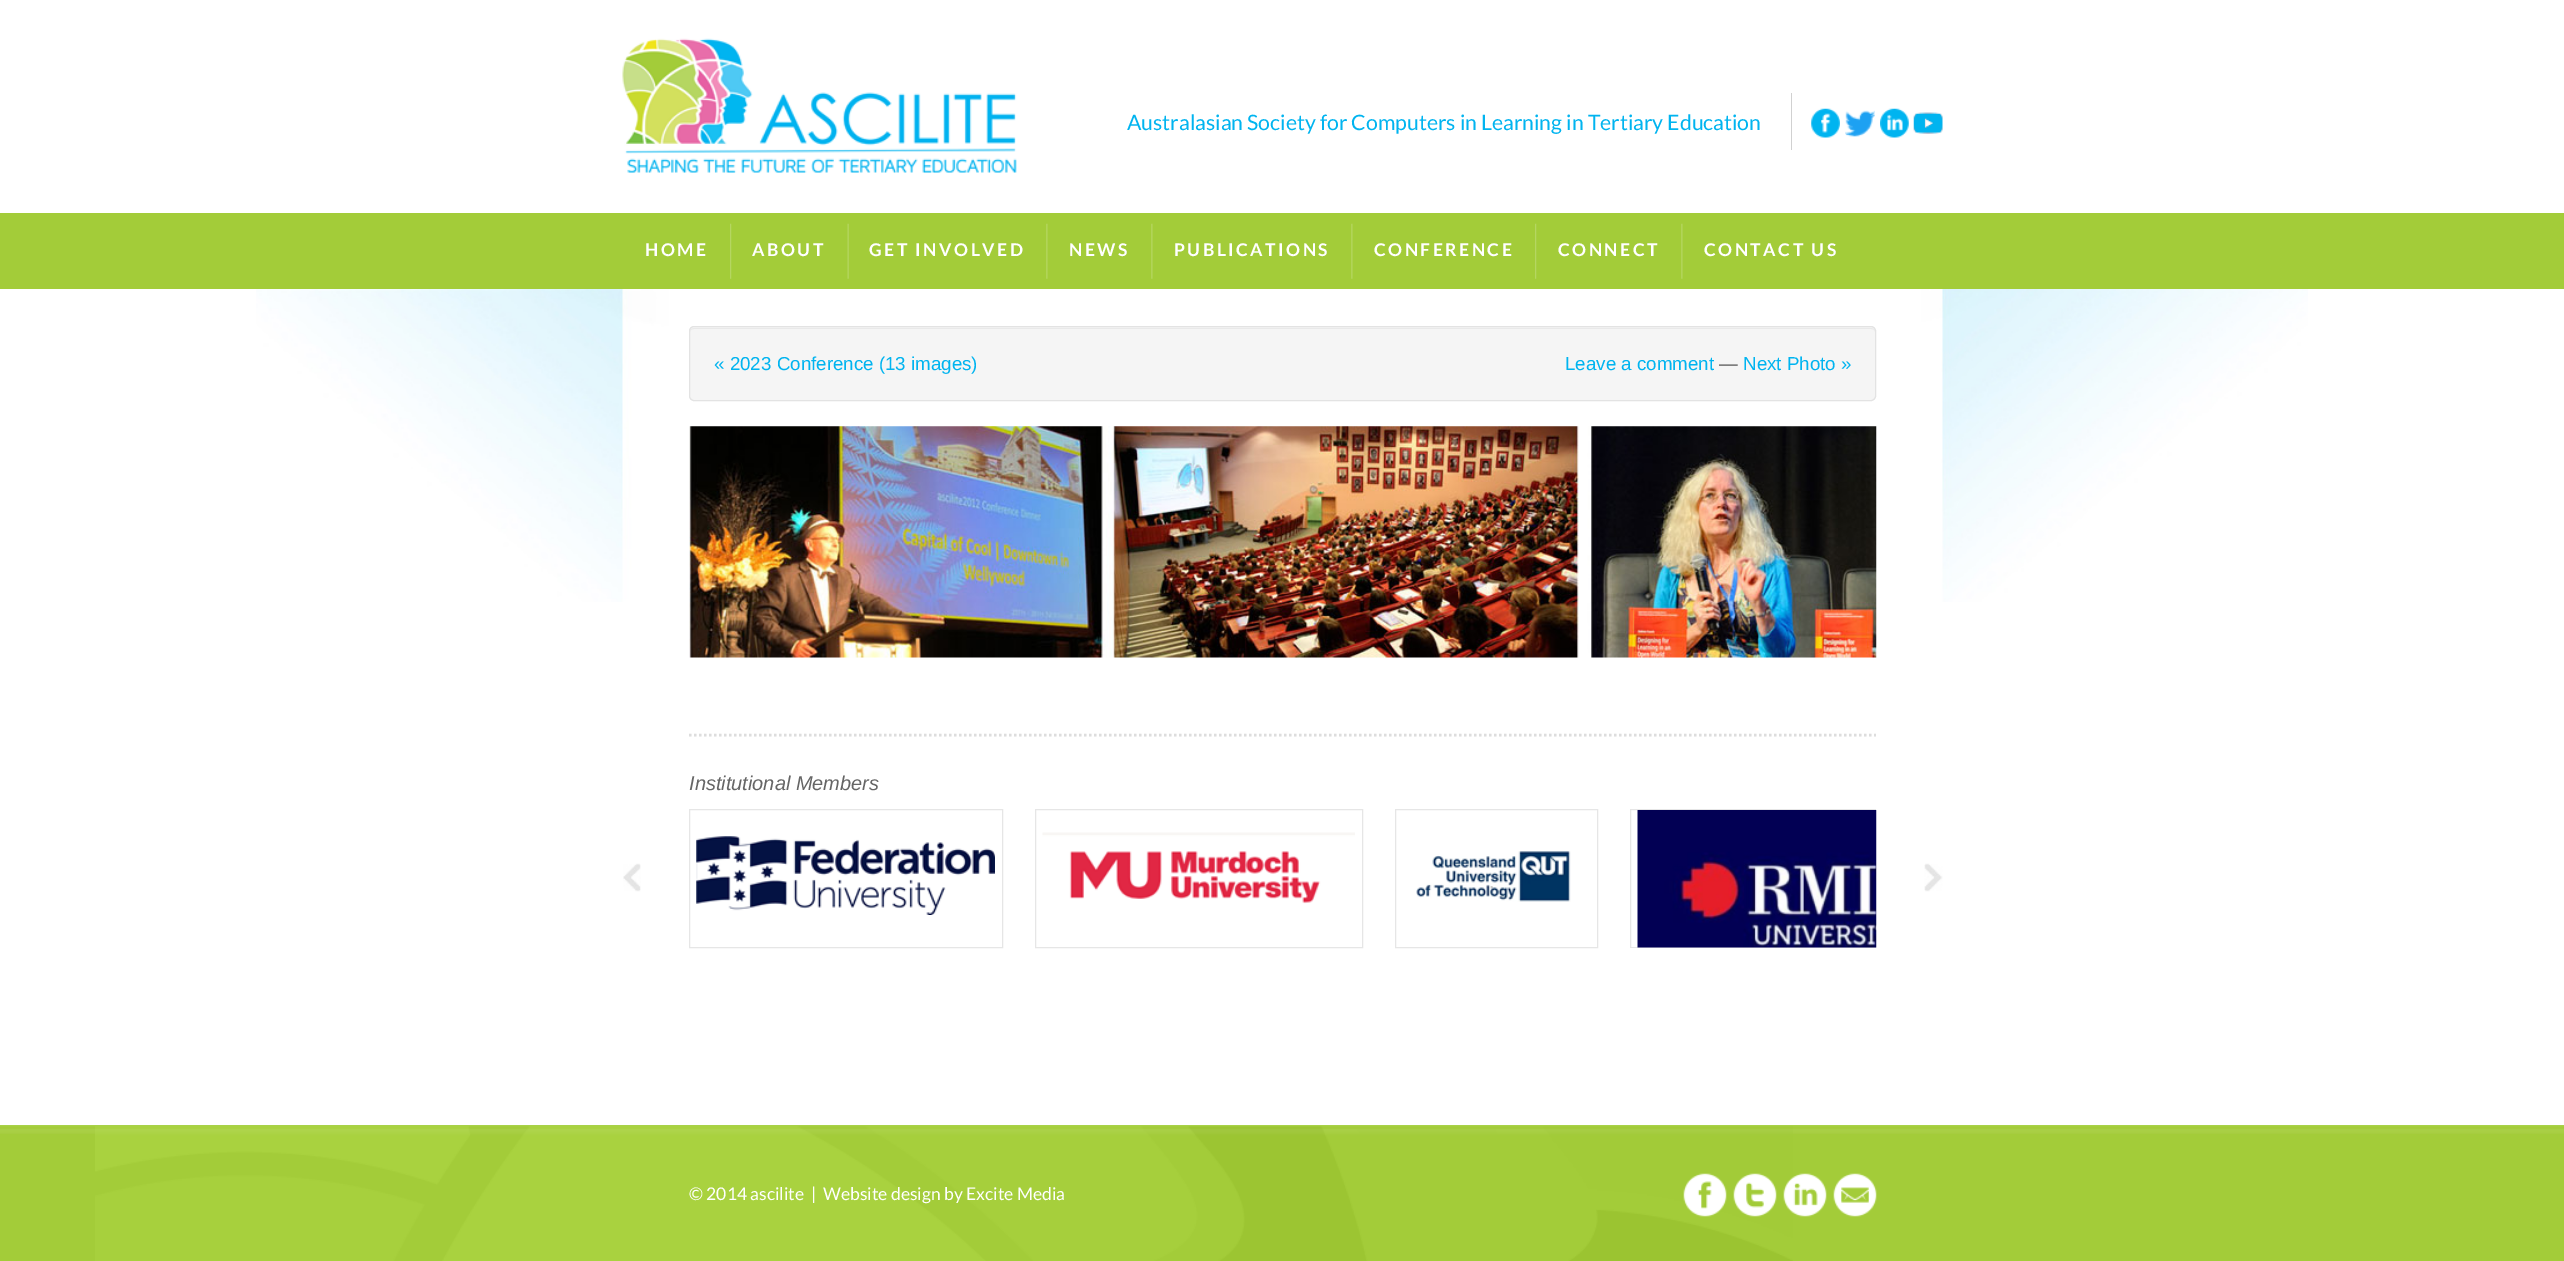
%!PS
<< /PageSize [2564 1261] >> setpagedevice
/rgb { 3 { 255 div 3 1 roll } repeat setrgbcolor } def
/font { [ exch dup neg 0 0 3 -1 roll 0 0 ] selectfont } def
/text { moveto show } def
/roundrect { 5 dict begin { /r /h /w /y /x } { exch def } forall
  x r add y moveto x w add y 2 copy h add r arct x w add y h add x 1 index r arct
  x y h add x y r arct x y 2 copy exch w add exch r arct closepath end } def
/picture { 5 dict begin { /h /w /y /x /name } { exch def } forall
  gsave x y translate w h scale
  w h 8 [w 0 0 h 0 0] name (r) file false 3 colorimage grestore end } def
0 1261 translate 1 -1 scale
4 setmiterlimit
255 255 255 rgb
0 0 2564 1261 rectfill
(img_01.rgb) 622 38 395 135 picture
209 209 209 rgb
1791 93 1 57 rectfill
(img_02.rgb) 1811 108 29 30 picture
(img_03.rgb) 1845 110 30 27 picture
(img_04.rgb) 1880 108 29 30 picture
(img_05.rgb) 1913 112 30 22 picture
163 204 57 rgb
0 213 2564 76 rectfill
(img_06.rgb) 730 223 2 56 picture
(img_07.rgb) 847 223 2 56 picture
(img_08.rgb) 1046 223 2 56 picture
(img_08.rgb) 1151 223 2 56 picture
(img_08.rgb) 1351 223 2 56 picture
(img_06.rgb) 1535 223 2 56 picture
(img_08.rgb) 1681 223 2 56 picture
(img_09.rgb) 256 289 2052 313 picture
245 245 245 rgb
689 326 1187 75 5 roundrect fill
233 233 233 rgb
694 329 moveto 1177 0 rlineto 2 0 4 1 4 3 rcurveto 0 -2 -2 -4 -4 -4 rcurveto -1177 0 rlineto -2 0 -4 2 -4 4 rcurveto 0 -2 2 -3 4 -3 rcurveto closepath fill
227 227 227 rgb
689.5 326.5 1186 74 4.5 roundrect stroke
(img_10.rgb) 689 426 1188 232 picture
221 221 221 rgb
2.5 setlinewidth
[2.5 2.5] 0 setdash
689 735 moveto 1187 0 rlineto stroke
230 230 230 rgb
1 setlinewidth
[] 0 setdash
689.5 809.5 313 138 rectstroke
(img_11.rgb) 696 836 299 79 picture
1035.5 809.5 327 138 rectstroke
(img_12.rgb) 1042 832 313 72 picture
1395.5 809.5 202 138 rectstroke
(img_13.rgb) 1416 851 155 51 picture
gsave
689 809 1187 139 rectclip
1630.5 809.5 389 138 rectstroke
grestore
(img_14.rgb) 1637 810 240 138 picture
(img_15.rgb) 623 863 18 29 picture
(img_16.rgb) 1924 863 19 29 picture
163 204 57 rgb
0 1134 2564 127 rectfill
(img_17.rgb) 0 1125 2564 9 picture
(img_18.rgb) 95 1126 1698 135 picture
(img_19.rgb) 1683 1173 44 44 picture
(img_20.rgb) 1733 1173 44 44 picture
(img_21.rgb) 1783 1173 44 44 picture
(img_22.rgb) 1833 1173 44 44 picture
/Lato-Regular 21.25 font
0 180 240 rgb
(Australasian Society for Computers in Learning in Tertiary Education) 1127 130 text
/Lato-Bold 17.5 font
255 255 255 rgb
645 256 moveto 2.5 0 (HOME) ashow
752 256 moveto 2.5 0 (ABOUT) ashow
869 256 moveto 2.5 0 (GET INVOLVED) ashow
1069 256 moveto 2.5 0 (NEWS) ashow
1174 256 moveto 2.5 0 (PUBLICATIONS) ashow
1374 256 moveto 2.5 0 (CONFERENCE) ashow
1558 256 moveto 2.5 0 (CONNECT) ashow
1704 256 moveto 2.5 0 (CONTACT US) ashow
/LiberationSans-Regular 18.75 font
0 180 240 rgb
(« 2023 Conference \(13 images\)) 714 370 text
(Leave a comment) 1565 370 text
85 85 85 rgb
(—) 1719 370 text
0 180 240 rgb
(Next Photo ») 1743 370 text
/LiberationSans-Italic 20 font
102 102 102 rgb
(Institutional Members) 689 790 text
/Lato-Regular 17.5 font
255 255 255 rgb
(© 2014 ascilite) 689 1200 text
(|) 811 1200 text
(Website design by Excite Media) 823 1200 text
showpage
